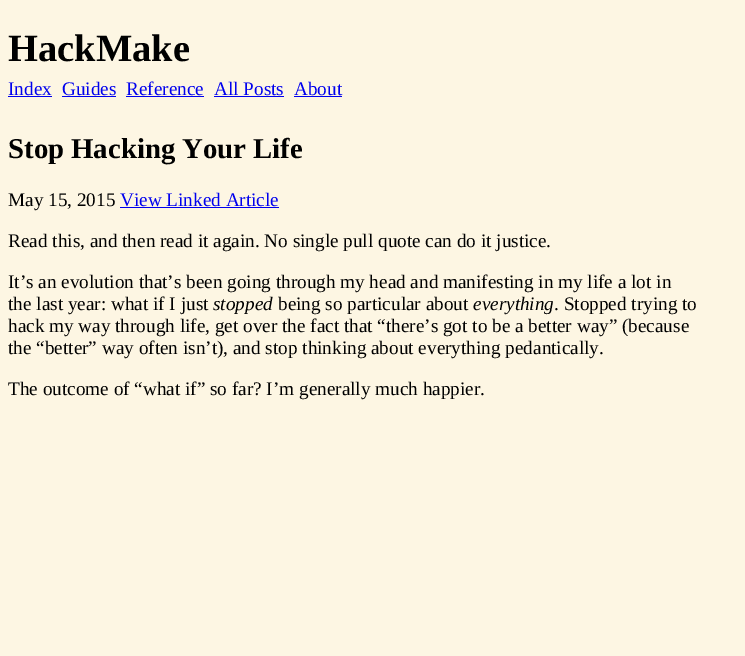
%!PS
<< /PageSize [745 656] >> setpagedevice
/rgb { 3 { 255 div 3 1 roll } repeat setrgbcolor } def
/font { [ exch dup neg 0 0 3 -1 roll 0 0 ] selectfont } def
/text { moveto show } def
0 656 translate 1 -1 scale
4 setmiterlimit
253 246 227 rgb
0 0 745 656 rectfill
0 0 238 rgb
8 96 44 1 rectfill
62 96 54 1 rectfill
126 96 78 1 rectfill
214 96 70 1 rectfill
294 96 48 1 rectfill
120 207 159 1 rectfill
/LiberationSerif-Bold 38.5 font
0 0 0 rgb
(HackMake) 8 61 text
/LiberationSerif-Regular 19.2 font
0 0 238 rgb
(Index) 8 95 text
(Guides) 62 95 text
(Reference) 126 95 text
(All Posts) 214 95 text
(About) 294 95 text
/LiberationSerif-Bold 28.75 font
0 0 0 rgb
(Stop Hacking Your Life) 8 158 text
/LiberationSerif-Regular 19.2 font
(May 15, 2015) 8 206 text
0 0 238 rgb
(View Linked Article) 120 206 text
0 0 0 rgb
(Read this, and then read it again. No single pull quote can do it justice.) 8 247 text
(It’s an evolution that’s been going through my head and manifesting in my life a lot in) 8 288 text
(the last year: what if I just) 8 310 text
/LiberationSerif-Italic 19.2 font
(stopped) 213 310 text
/LiberationSerif-Regular 19.2 font
(being so particular about) 278 310 text
/LiberationSerif-Italic 19.2 font
(everything) 473 310 text
/LiberationSerif-Regular 19.2 font
(. Stopped trying to) 554 310 text
(hack my way through life, get over the fact that “there’s got to be a better way” \(because) 8 332 text
(the “better” way often isn’t\), and stop thinking about everything pedantically.) 8 354 text
(The outcome of “what if” so far? I’m generally much happier.) 8 395 text
showpage
